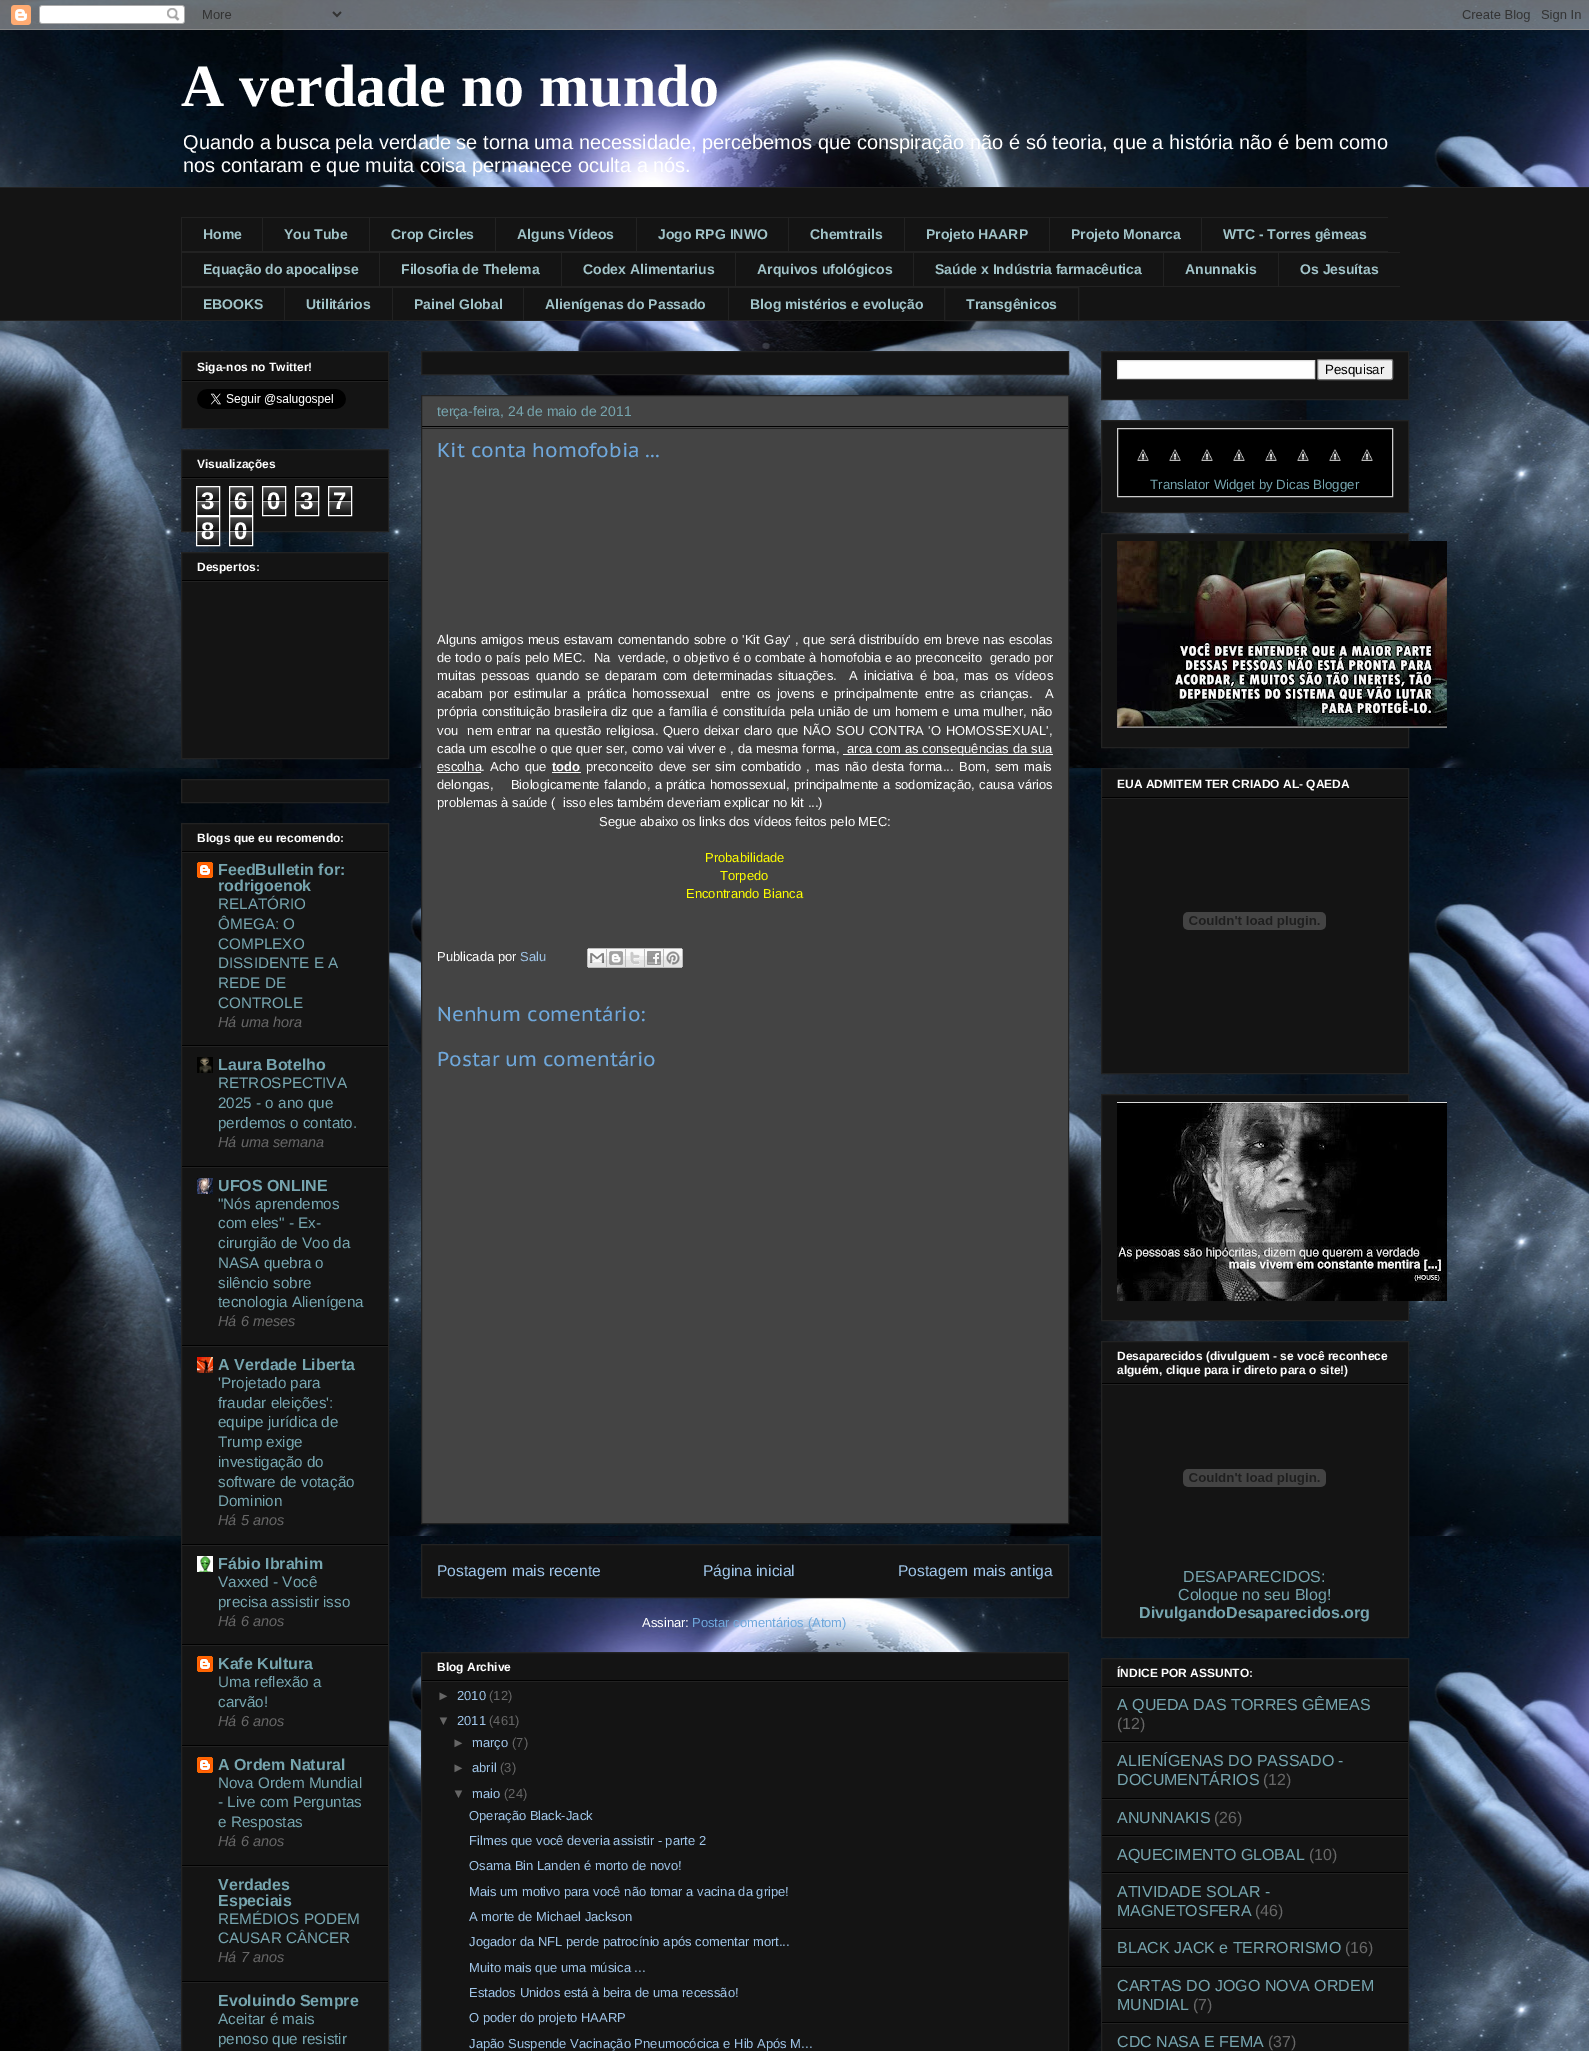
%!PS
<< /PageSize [1589 2051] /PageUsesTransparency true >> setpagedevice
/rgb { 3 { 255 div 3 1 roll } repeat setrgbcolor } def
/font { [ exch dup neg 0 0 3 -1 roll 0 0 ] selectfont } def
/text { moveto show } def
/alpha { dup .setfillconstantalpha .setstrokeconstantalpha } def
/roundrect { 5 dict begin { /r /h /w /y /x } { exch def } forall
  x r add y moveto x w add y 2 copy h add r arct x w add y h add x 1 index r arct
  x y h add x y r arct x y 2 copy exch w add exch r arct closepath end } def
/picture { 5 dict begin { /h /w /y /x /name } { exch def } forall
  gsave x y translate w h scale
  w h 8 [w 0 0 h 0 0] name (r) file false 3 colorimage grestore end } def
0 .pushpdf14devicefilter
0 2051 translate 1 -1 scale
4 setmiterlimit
255 255 255 rgb
0 0 1589 2051 rectfill
(img_01.rgb) 0 0 1589 2051 picture
(img_02.rgb) 0 0 1589 30 picture
20 20 20 rgb
0 188 1589 132 rectfill
34 34 34 rgb
0 187 1589 1 rectfill
181 217 1207 1 rectfill
181 251 1207 1 rectfill
181 217 1 35 rectfill
262 217 1 35 rectfill
369 217 1 35 rectfill
495 217 1 35 rectfill
636 217 1 35 rectfill
788 217 1 35 rectfill
904 217 1 35 rectfill
1049 217 1 35 rectfill
1201 217 1 35 rectfill
181 252 1219 1 rectfill
181 286 1219 1 rectfill
181 252 1 35 rectfill
379 252 1 35 rectfill
561 252 1 35 rectfill
735 252 1 35 rectfill
913 252 1 35 rectfill
1163 252 1 35 rectfill
1278 252 1 35 rectfill
181 287 763 1 rectfill
181 287 1 34 rectfill
284 287 1 34 rectfill
392 287 1 34 rectfill
523 287 1 34 rectfill
728 287 1 34 rectfill
944.5 287.5 134 33 rectstroke
0 320 1589 1 rectfill
20 20 20 rgb
181.5 351.5 moveto 207 0 rlineto 0 77 rlineto -207 0 rlineto closepath gsave fill grestore
34 34 34 rgb
stroke
0 0 0 rgb
182 380 206 1 rectfill
34 34 34 rgb
182 381 206 1 rectfill
(img_03.rgb) 197 389 149 20 picture
20 20 20 rgb
181.5 449.5 moveto 207 0 rlineto 0 82 rlineto -207 0 rlineto closepath gsave fill grestore
34 34 34 rgb
stroke
0 0 0 rgb
182 477 206 1 rectfill
34 34 34 rgb
182 478 206 1 rectfill
(img_04.rgb) 197 487 22 28 picture
255 255 255 rgb
196.5 486.5 23 29 rectstroke
(img_04.rgb) 230 487 22 28 picture
229.5 486.5 23 29 rectstroke
(img_04.rgb) 263 487 22 28 picture
262.5 486.5 23 29 rectstroke
(img_04.rgb) 296 487 22 28 picture
295.5 486.5 23 29 rectstroke
(img_04.rgb) 329 487 22 28 picture
328.5 486.5 23 29 rectstroke
(img_04.rgb) 197 517 22 28 picture
196.5 516.5 23 29 rectstroke
(img_04.rgb) 230 517 22 28 picture
229.5 516.5 23 29 rectstroke
20 20 20 rgb
181.5 552.5 moveto 207 0 rlineto 0 206 rlineto -207 0 rlineto closepath gsave fill grestore
34 34 34 rgb
stroke
0 0 0 rgb
182 580 206 1 rectfill
34 34 34 rgb
182 581 206 1 rectfill
20 20 20 rgb
181.5 779.5 moveto 207 0 rlineto 0 23 rlineto -207 0 rlineto closepath gsave fill grestore
34 34 34 rgb
stroke
20 20 20 rgb
181.5 823.5 moveto 207 0 rlineto 0 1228 rlineto -207 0 rlineto closepath gsave fill grestore
34 34 34 rgb
stroke
0 0 0 rgb
182 851 206 1 rectfill
34 34 34 rgb
182 852 206 1 rectfill
0 0 0 rgb
182 1045 206 1 rectfill
(img_05.rgb) 197 862 16 16 picture
34 34 34 rgb
182 1046 206 1 rectfill
0 0 0 rgb
182 1166 206 1 rectfill
(img_06.rgb) 197 1057 16 16 picture
34 34 34 rgb
182 1167 206 1 rectfill
0 0 0 rgb
182 1345 206 1 rectfill
(img_07.rgb) 197 1178 16 16 picture
34 34 34 rgb
182 1346 206 1 rectfill
0 0 0 rgb
182 1544 206 1 rectfill
(img_08.rgb) 197 1357 16 16 picture
34 34 34 rgb
182 1545 206 1 rectfill
0 0 0 rgb
182 1644 206 1 rectfill
(img_09.rgb) 197 1556 16 16 picture
34 34 34 rgb
182 1645 206 1 rectfill
0 0 0 rgb
182 1745 206 1 rectfill
(img_05.rgb) 197 1656 16 16 picture
34 34 34 rgb
182 1746 206 1 rectfill
0 0 0 rgb
182 1865 206 1 rectfill
(img_05.rgb) 197 1757 16 16 picture
34 34 34 rgb
182 1866 206 1 rectfill
0 0 0 rgb
182 1981 206 1 rectfill
34 34 34 rgb
182 1982 206 1 rectfill
20 20 20 rgb
421.5 351.5 moveto 647 0 rlineto 0 23 rlineto -647 0 rlineto closepath gsave fill grestore
34 34 34 rgb
stroke
68 68 68 rgb
421.5 395.5 moveto 647 0 rlineto 0 1128 rlineto -647 0 rlineto closepath gsave fill grestore
34 34 34 rgb
stroke
0 0 0 rgb
422 426 646 1 rectfill
34 34 34 rgb
422 428 646 1 rectfill
255 255 255 rgb
843 754 210 1 rectfill
437 772 44 1 rectfill
552 772 29 1 rectfill
(img_10.rgb) 587 948 20 20 picture
(img_11.rgb) 607 948 19 20 picture
(img_12.rgb) 626 948 19 20 picture
(img_13.rgb) 645 948 19 20 picture
(img_14.rgb) 664 948 19 20 picture
20 20 20 rgb
421.5 1544.5 moveto 647 0 rlineto 0 53 rlineto -647 0 rlineto closepath gsave fill grestore
34 34 34 rgb
stroke
20 20 20 rgb
421.5 1652.5 moveto 647 0 rlineto 0 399 rlineto -647 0 rlineto closepath gsave fill grestore
34 34 34 rgb
stroke
0 0 0 rgb
422 1680 646 1 rectfill
34 34 34 rgb
422 1681 646 1 rectfill
20 20 20 rgb
1101.5 351.5 moveto 307 0 rlineto 0 48 rlineto -307 0 rlineto closepath gsave fill grestore
34 34 34 rgb
stroke
255 255 255 rgb
1117.5 360.5 moveto 197 0 rlineto 0 18 rlineto -197 0 rlineto closepath gsave fill grestore
221 221 221 rgb
stroke
239 239 239 rgb
1317.5 359.5 75 20 1.5 roundrect gsave fill grestore
118 118 118 rgb
stroke
20 20 20 rgb
1101.5 420.5 moveto 307 0 rlineto 0 92 rlineto -307 0 rlineto closepath gsave fill grestore
34 34 34 rgb
stroke
0 0 0 rgb
1117.5 428.5 moveto 275 0 rlineto 0 68 rlineto -275 0 rlineto closepath gsave fill grestore
204 204 204 rgb
stroke
(img_15.rgb) 1137 449 12 12 picture
(img_15.rgb) 1169 449 12 12 picture
(img_15.rgb) 1201 449 12 12 picture
(img_15.rgb) 1233 449 12 12 picture
(img_15.rgb) 1265 449 12 12 picture
(img_15.rgb) 1297 449 12 12 picture
(img_15.rgb) 1329 449 12 12 picture
(img_15.rgb) 1361 449 12 12 picture
20 20 20 rgb
1101.5 533.5 moveto 307 0 rlineto 0 214 rlineto -307 0 rlineto closepath gsave fill grestore
34 34 34 rgb
stroke
(img_16.rgb) 1117 541 330 187 picture
20 20 20 rgb
1101.5 768.5 moveto 307 0 rlineto 0 305 rlineto -307 0 rlineto closepath gsave fill grestore
34 34 34 rgb
stroke
0 0 0 rgb
1102 797 306 1 rectfill
34 34 34 rgb
1102 798 306 1 rectfill
(img_17.rgb) 1183 912 143 18 picture
20 20 20 rgb
1101.5 1094.5 moveto 307 0 rlineto 0 226 rlineto -307 0 rlineto closepath gsave fill grestore
34 34 34 rgb
stroke
(img_18.rgb) 1117 1102 330 199 picture
20 20 20 rgb
1101.5 1341.5 moveto 307 0 rlineto 0 296 rlineto -307 0 rlineto closepath gsave fill grestore
34 34 34 rgb
stroke
0 0 0 rgb
1102 1383 306 1 rectfill
34 34 34 rgb
1102 1384 306 1 rectfill
(img_17.rgb) 1183 1469 143 18 picture
20 20 20 rgb
1101.5 1658.5 moveto 307 0 rlineto 0 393 rlineto -307 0 rlineto closepath gsave fill grestore
34 34 34 rgb
stroke
0 0 0 rgb
1102 1686 306 1 rectfill
34 34 34 rgb
1102 1687 306 1 rectfill
0 0 0 rgb
1102 1741 306 1 rectfill
34 34 34 rgb
1102 1742 306 1 rectfill
0 0 0 rgb
1102 1798 306 1 rectfill
34 34 34 rgb
1102 1799 306 1 rectfill
0 0 0 rgb
1102 1835 306 1 rectfill
34 34 34 rgb
1102 1836 306 1 rectfill
0 0 0 rgb
1102 1872 306 1 rectfill
34 34 34 rgb
1102 1873 306 1 rectfill
0 0 0 rgb
1102 1928 306 1 rectfill
34 34 34 rgb
1102 1929 306 1 rectfill
0 0 0 rgb
1102 1966 306 1 rectfill
34 34 34 rgb
1102 1967 306 1 rectfill
0 0 0 rgb
1102 2022 306 1 rectfill
34 34 34 rgb
1102 2023 306 1 rectfill
/LiberationSerif-Bold 60 font
255 255 255 rgb
(A verdade no mundo) 181 106 text
/LiberationSans-Regular 20 font
(Quando a busca pela verdade se torna uma necessidade, percebemos que conspiração não é só teoria, que a história não é bem como) 183 149 text
(nos contaram e que muita coisa permanece oculta a nós.) 183 172 text
/LiberationSans-Bold 14 font
162 196 201 rgb
(Home) 203 239 text
(You Tube) 284 239 text
(Crop Circles) 391 239 text
(Alguns Vídeos) 517 239 text
(Jogo RPG INWO) 658 239 text
(Chemtrails) 810 239 text
(Projeto HAARP) 926 239 text
(Projeto Monarca) 1071 239 text
(WTC - Torres gêmeas) 1223 239 text
(Equação do apocalipse) 203 274 text
(Filosofia de Thelema) 401 274 text
(Codex Alimentarius) 583 274 text
(Arquivos ufológicos) 757 274 text
(Saúde x Indústria farmacêutica) 935 274 text
(Anunnakis) 1185 274 text
(Os Jesuítas) 1300 274 text
(EBOOKS) 203 309 text
(Utilitários) 306 309 text
(Painel Global) 414 309 text
(Alienígenas do Passado) 545 309 text
(Blog mistérios e evolução) 750 309 text
(Transgênicos) 966 309 text
/LiberationSans-Bold 12 font
255 255 255 rgb
(Siga-nos no Twitter!) 197 371 text
(Visualizações) 197 468 text
/LiberationSans-Bold 24 font
(3) 201 509 text
0.65 alpha
0 0 0 rgb
197 500 22 1 rectfill
255 255 255 rgb
197 501 22 1 rectfill
1 alpha
(6) 234 509 text
0.65 alpha
0 0 0 rgb
230 500 22 1 rectfill
255 255 255 rgb
230 501 22 1 rectfill
1 alpha
(0) 267 509 text
0.65 alpha
0 0 0 rgb
263 500 22 1 rectfill
255 255 255 rgb
263 501 22 1 rectfill
1 alpha
(3) 300 509 text
0.65 alpha
0 0 0 rgb
296 500 22 1 rectfill
255 255 255 rgb
296 501 22 1 rectfill
1 alpha
(7) 333 509 text
0.65 alpha
0 0 0 rgb
329 500 22 1 rectfill
255 255 255 rgb
329 501 22 1 rectfill
1 alpha
(8) 201 539 text
0.65 alpha
0 0 0 rgb
197 530 22 1 rectfill
255 255 255 rgb
197 531 22 1 rectfill
1 alpha
(0) 234 539 text
0.65 alpha
0 0 0 rgb
230 530 22 1 rectfill
255 255 255 rgb
230 531 22 1 rectfill
/LiberationSans-Bold 12 font
1 alpha
(Despertos:) 197 571 text
(Blogs que eu recomendo:) 197 842 text
/LiberationSans-Bold 16 font
118 165 175 rgb
(FeedBulletin for:) 218 875 text
(rodrigoenok) 218 891 text
/LiberationSans-Regular 15.25 font
(RELATÓRIO) 218 909 text
(ÔMEGA: O) 218 929 text
(COMPLEXO) 218 949 text
(DISSIDENTE E A) 218 968 text
(REDE DE) 218 988 text
(CONTROLE) 218 1008 text
/LiberationSans-Italic 14.5 font
102 102 102 rgb
(Há uma hora) 218 1027 text
/LiberationSans-Bold 16 font
118 165 175 rgb
(Laura Botelho) 218 1070 text
/LiberationSans-Regular 15.25 font
(RETROSPECTIVA) 218 1088 text
(2025 - o ano que) 218 1108 text
(perdemos o contato.) 218 1128 text
/LiberationSans-Italic 14.5 font
102 102 102 rgb
(Há uma semana) 218 1147 text
/LiberationSans-Bold 16 font
118 165 175 rgb
(UFOS ONLINE) 218 1191 text
/LiberationSans-Regular 15.25 font
("Nós aprendemos) 218 1209 text
(com eles" - Ex-) 218 1228 text
(cirurgião de Voo da) 218 1248 text
(NASA quebra o) 218 1268 text
(silêncio sobre) 218 1288 text
(tecnologia Alienígena) 218 1307 text
/LiberationSans-Italic 14.5 font
102 102 102 rgb
(Há 6 meses) 218 1326 text
/LiberationSans-Bold 16 font
118 165 175 rgb
(A Verdade Liberta) 218 1370 text
/LiberationSans-Regular 15.25 font
('Projetado para) 218 1388 text
(fraudar eleições':) 218 1408 text
(equipe jurídica de) 218 1427 text
(Trump exige) 218 1447 text
(investigação do) 218 1467 text
(software de votação) 218 1487 text
(Dominion) 218 1506 text
/LiberationSans-Italic 14.5 font
102 102 102 rgb
(Há 5 anos) 218 1525 text
/LiberationSans-Bold 16 font
118 165 175 rgb
(Fábio Ibrahim) 218 1569 text
/LiberationSans-Regular 15.25 font
(Vaxxed - Você) 218 1587 text
(precisa assistir isso) 218 1607 text
/LiberationSans-Italic 14.5 font
102 102 102 rgb
(Há 6 anos) 218 1626 text
/LiberationSans-Bold 16 font
118 165 175 rgb
(Kafe Kultura) 218 1669 text
/LiberationSans-Regular 15.25 font
(Uma reflexão a) 218 1687 text
(carvão!) 218 1707 text
/LiberationSans-Italic 14.5 font
102 102 102 rgb
(Há 6 anos) 218 1726 text
/LiberationSans-Bold 16 font
118 165 175 rgb
(A Ordem Natural) 218 1770 text
/LiberationSans-Regular 15.25 font
(Nova Ordem Mundial) 218 1788 text
(- Live com Perguntas) 218 1807 text
(e Respostas) 218 1827 text
/LiberationSans-Italic 14.5 font
102 102 102 rgb
(Há 6 anos) 218 1846 text
/LiberationSans-Bold 16 font
118 165 175 rgb
(Verdades) 218 1890 text
(Especiais) 218 1906 text
/LiberationSans-Regular 15.25 font
(REMÉDIOS PODEM) 218 1924 text
(CAUSAR CÂNCER) 218 1943 text
/LiberationSans-Italic 14.5 font
102 102 102 rgb
(Há 7 anos) 218 1962 text
/LiberationSans-Bold 16 font
118 165 175 rgb
(Evoluindo Sempre) 218 2006 text
/LiberationSans-Regular 15.25 font
(Aceitar é mais) 218 2024 text
(penoso que resistir) 218 2044 text
/LiberationSans-Regular 14 font
(terça-feira, 24 de maio de 2011) 437 416 text
/PTSansCaption-Regular 20 font
111 168 220 rgb
(Kit conta homofobia ...) 437 457 text
/LiberationSans-Regular 13 font
255 255 255 rgb
437 644 moveto 0.9 0 32 (Alguns amigos meus estavam comentando sobre o 'Kit Gay' , que será distribuído em breve nas escolas) widthshow
437 662 moveto 0.4 0 32 (de todo o país pelo MEC.  Na  verdade, o objetivo é o combate à homofobia e ao preconceito  gerado por) widthshow
437 680 moveto 2.5 0 32 (muitas pessoas quando se deparam com determinadas situações.  A iniciativa é boa, mas os vídeos) widthshow
437 698 moveto 2.6 0 32 (acabam por estimular a prática homossexual  entre os jovens e principalmente entre as crianças.  A) widthshow
437 716 moveto 0.5 0 32 (própria constituição brasileira diz que a família é constituída pela união de um homem e uma mulher, não) widthshow
437 735 moveto 1.1 0 32 (vou  nem entrar na questão religiosa. Quero deixar claro que NÃO SOU CONTRA 'O HOMOSSEXUAL',) widthshow
437 753 moveto 0.25 0 32 (cada um escolhe o que quer ser, como vai viver e , da mesma forma,) widthshow
847 753 moveto 0.25 0 32 (arca com as consequências da sua) widthshow
(escolha) 437 771 text
481 771 moveto 1.75 0 32 (. Acho que) widthshow
/LiberationSans-Bold 13 font
(todo) 552 771 text
/LiberationSans-Regular 13 font
586 771 moveto 1.75 0 32 (preconceito deve ser sim combatido , mas não desta forma... Bom, sem mais) widthshow
437 789 moveto 0.75 0 32 (delongas,    Biologicamente falando, a prática homossexual, principalmente a sodomização, causa vários) widthshow
(problemas à saúde \(  isso eles também deveriam explicar no kit ...\)) 437 807 text
(Segue abaixo os links dos vídeos feitos pelo MEC:) 599 826 text
255 255 0 rgb
(Probabilidade) 705 862 text
(Torpedo) 720 880 text
(Encontrando Bianca) 686 898 text
255 255 255 rgb
(Publicada por) 437 961 text
159 197 232 rgb
(Salu) 520 961 text
/PTSansCaption-Regular 20 font
111 168 220 rgb
(Nenhum comentário:) 437 1021 text
(Postar um comentário) 437 1066 text
/LiberationSans-Regular 15.6 font
159 197 232 rgb
(Postagem mais recente) 437 1576 text
(Página inicial) 703 1576 text
(Postagem mais antiga) 898 1576 text
/LiberationSans-Regular 13 font
255 255 255 rgb
(Assinar:) 642 1627 text
111 168 220 rgb
(Postar comentários \(Atom\)) 692 1627 text
/LiberationSans-Bold 12 font
255 255 255 rgb
(Blog Archive) 437 1671 text
/LiberationSans-Regular 13 font
102 102 102 rgb
(►) 437 1700 text
159 197 232 rgb
(2010) 457 1700 text
102 102 102 rgb
(\(12\)) 489 1700 text
(▼) 437 1725 text
159 197 232 rgb
(2011) 457 1725 text
102 102 102 rgb
(\(461\)) 489 1725 text
(►) 452 1747 text
159 197 232 rgb
(março) 472 1747 text
102 102 102 rgb
(\(7\)) 512 1747 text
(►) 452 1772 text
159 197 232 rgb
(abril) 472 1772 text
102 102 102 rgb
(\(3\)) 500 1772 text
(▼) 452 1798 text
159 197 232 rgb
(maio) 472 1798 text
102 102 102 rgb
(\(24\)) 504 1798 text
159 197 232 rgb
(Operação Black-Jack) 469 1820 text
(Filmes que você deveria assistir - parte 2) 469 1845 text
(Osama Bin Landen é morto de novo!) 469 1870 text
(Mais um motivo para você não tomar a vacina da gripe!) 469 1896 text
(A morte de Michael Jackson) 469 1921 text
(Jogador da NFL perde patrocínio após comentar mort...) 469 1946 text
(Muito mais que uma música ...) 469 1972 text
(Estados Unidos está à beira de uma recessão!) 469 1997 text
(O poder do projeto HAARP) 469 2022 text
(Japão Suspende Vacinação Pneumocócica e Hib Após M...) 469 2048 text
/LiberationSans-Regular 13.3 font
0 0 0 rgb
(Pesquisar) 1325 374 text
118 165 175 rgb
(Translator Widget by Dicas Blogger) 1150 489 text
/LiberationSans-Bold 12 font
255 255 255 rgb
(EUA ADMITEM TER CRIADO AL- QAEDA) 1117 788 text
(Desaparecidos \(divulguem - se você reconhece) 1117 1360 text
(alguém, clique para ir direto para o site!\)) 1117 1374 text
/LiberationSans-Regular 16 font
118 165 175 rgb
(DESAPARECIDOS:) 1183 1582 text
(Coloque no seu Blog!) 1178 1600 text
/LiberationSans-Bold 16 font
(DivulgandoDesaparecidos.org) 1139 1618 text
/LiberationSans-Bold 12 font
255 255 255 rgb
(ÍNDICE POR ASSUNTO:) 1117 1677 text
/LiberationSans-Regular 16 font
118 165 175 rgb
(A QUEDA DAS TORRES GÊMEAS) 1117 1710 text
102 102 102 rgb
(\(12\)) 1117 1729 text
118 165 175 rgb
(ALIENÍGENAS DO PASSADO -) 1117 1766 text
(DOCUMENTÁRIOS) 1117 1785 text
102 102 102 rgb
(\(12\)) 1263 1785 text
118 165 175 rgb
(ANUNNAKIS) 1117 1823 text
102 102 102 rgb
(\(26\)) 1214 1823 text
118 165 175 rgb
(AQUECIMENTO GLOBAL) 1117 1860 text
102 102 102 rgb
(\(10\)) 1309 1860 text
118 165 175 rgb
(ATIVIDADE SOLAR -) 1117 1897 text
(MAGNETOSFERA) 1117 1916 text
102 102 102 rgb
(\(46\)) 1255 1916 text
118 165 175 rgb
(BLACK JACK e TERRORISMO) 1117 1953 text
102 102 102 rgb
(\(16\)) 1345 1953 text
118 165 175 rgb
(CARTAS DO JOGO NOVA ORDEM) 1117 1991 text
(MUNDIAL) 1117 2010 text
102 102 102 rgb
(\(7\)) 1193 2010 text
118 165 175 rgb
(CDC NASA E FEMA) 1117 2047 text
102 102 102 rgb
(\(37\)) 1268 2047 text
.poppdf14devicefilter showpage
